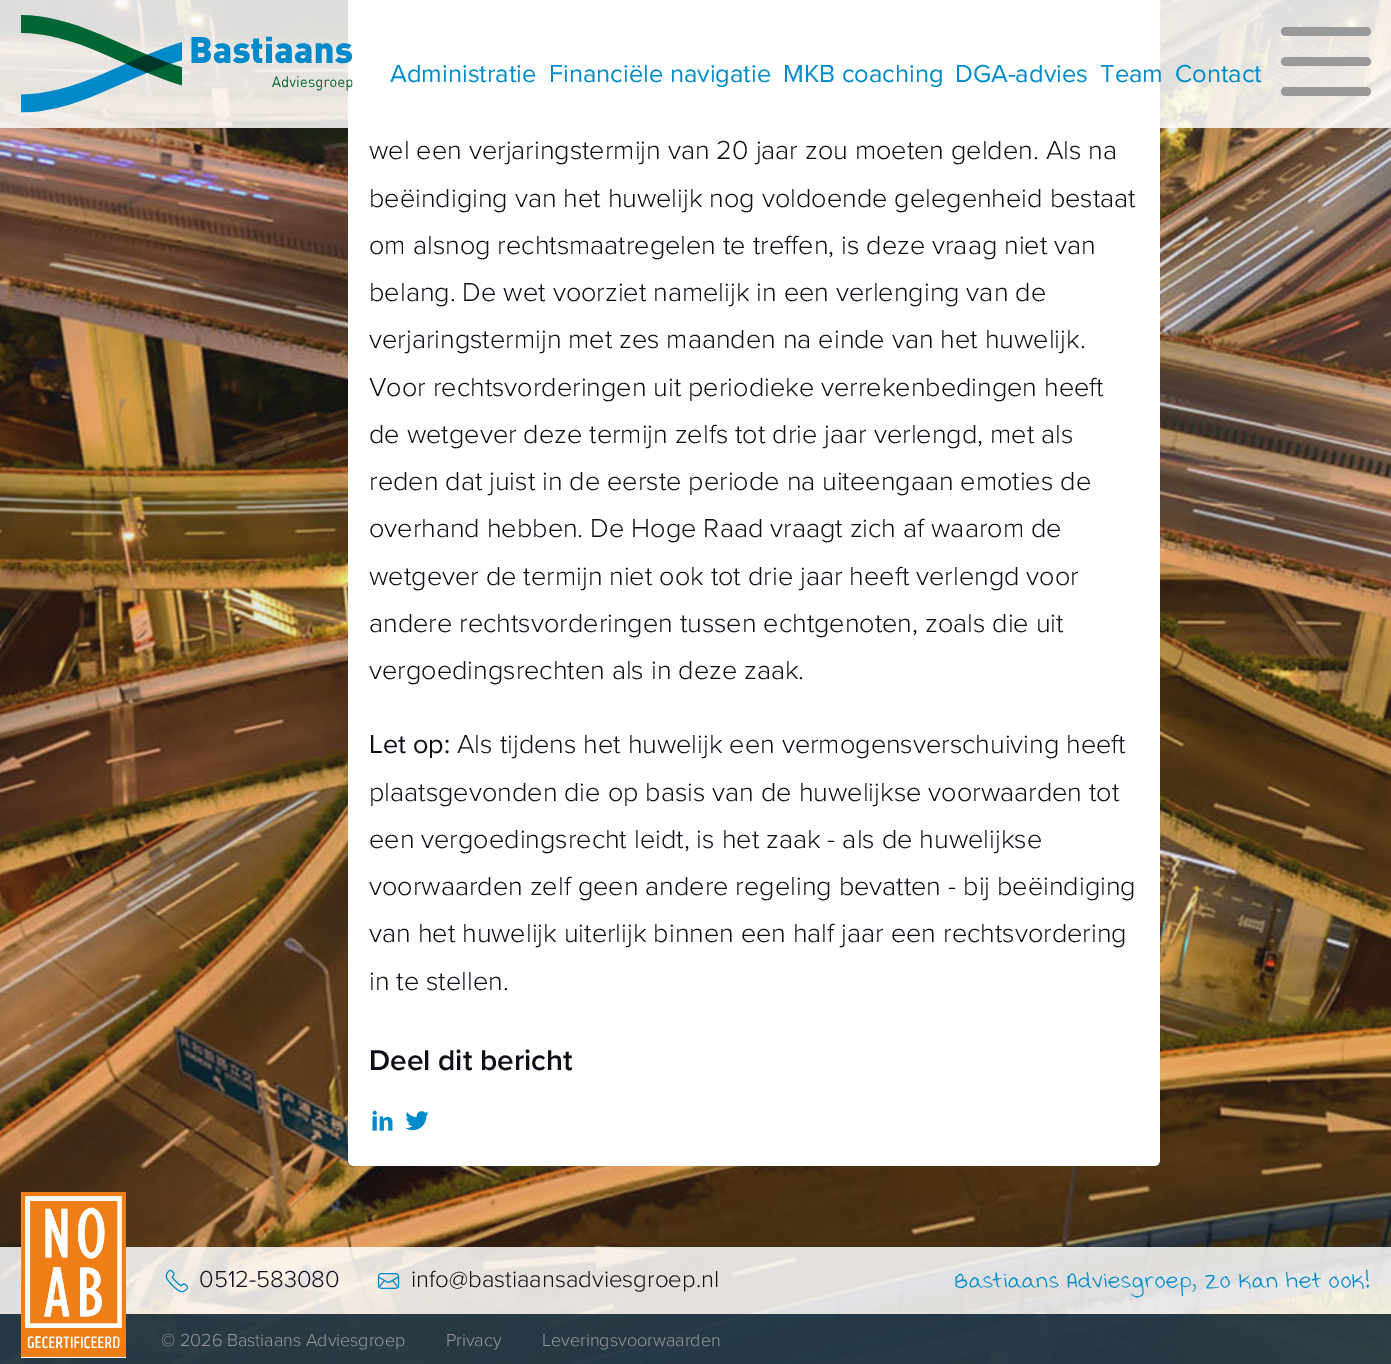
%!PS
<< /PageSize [1391 1364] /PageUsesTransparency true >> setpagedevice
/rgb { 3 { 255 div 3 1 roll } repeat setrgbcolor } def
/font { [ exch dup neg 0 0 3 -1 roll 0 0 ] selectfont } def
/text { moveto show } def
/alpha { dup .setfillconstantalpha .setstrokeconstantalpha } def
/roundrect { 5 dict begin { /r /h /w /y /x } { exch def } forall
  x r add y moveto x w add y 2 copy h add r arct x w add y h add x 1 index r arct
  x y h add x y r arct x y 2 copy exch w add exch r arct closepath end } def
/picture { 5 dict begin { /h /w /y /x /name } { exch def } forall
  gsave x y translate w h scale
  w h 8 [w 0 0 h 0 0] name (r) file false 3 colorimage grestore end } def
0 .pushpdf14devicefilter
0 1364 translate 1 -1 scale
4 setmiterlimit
255 255 255 rgb
0 0 1391 1364 rectfill
(img_01.rgb) 0 0 1391 1364 picture
348 -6 moveto 806 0 rlineto 3.5 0 6 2.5 6 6 rcurveto 0 1160 rlineto 0 3.5 -2.5 6 -6 6 rcurveto -800 0 rlineto -3.5 0 -6 -2.5 -6 -6 rcurveto closepath fill
0.85 alpha
0 0 1391 128 rectfill
1 alpha
(img_02.rgb) 21 15 332 98 picture
153 153 153 rgb
1281 57 90 9 4.5 roundrect fill
1281 27 90 9 4.5 roundrect fill
1281 87 90 9 4.5 roundrect fill
(img_03.rgb) 372 1110 21 21 picture
(img_04.rgb) 405 1111 24 20 picture
0.85 alpha
255 255 255 rgb
0 1247 1391 67 rectfill
0.95 alpha
37 57 70 rgb
0 1314 1391 50 rectfill
1 alpha
255 255 255 rgb
21 1193 105 165 rectfill
(img_05.rgb) 21 1192 105 165 picture
(img_06.rgb) 165 1269 24 24 picture
(img_07.rgb) 377 1273 23 16 picture
/ProximaNova-Regular 25.5 font
0 139 203 rgb
(Administratie) 390 82 text
(Financiële navigatie) 549 82 text
(MKB coaching) 783 82 text
(DGA-advies) 955 82 text
(Team) 1100 82 text
(Contact) 1175 82 text
/ProximaNova-Light 27 font
14 14 24 rgb
(wel een verjaringstermijn van 20 jaar zou moeten gelden. Als na) 369 159 text
(beëindiging van het huwelijk nog voldoende gelegenheid bestaat) 369 207 text
(om alsnog rechtsmaatregelen te treffen, is deze vraag niet van) 369 254 text
(belang. De wet voorziet namelijk in een verlenging van de) 369 301 text
(verjaringstermijn met zes maanden na einde van het huwelijk.) 369 348 text
(Voor rechtsvorderingen uit periodieke verrekenbedingen heeft) 369 396 text
(de wetgever deze termijn zelfs tot drie jaar verlengd, met als) 369 443 text
(reden dat juist in de eerste periode na uiteengaan emoties de) 369 490 text
(overhand hebben. De Hoge Raad vraagt zich af waarom de) 369 537 text
(wetgever de termijn niet ook tot drie jaar heeft verlengd voor) 369 585 text
(andere rechtsvorderingen tussen echtgenoten, zoals die uit) 369 632 text
(vergoedingsrechten als in deze zaak.) 369 679 text
/ProximaNova-Regular 27 font
(Let op:) 369 753 text
/ProximaNova-Light 27 font
(Als tijdens het huwelijk een vermogensverschuiving heeft) 457 753 text
(plaatsgevonden die op basis van de huwelijkse voorwaarden tot) 369 801 text
(een vergoedingsrecht leidt, is het zaak - als de huwelijkse) 369 848 text
(voorwaarden zelf geen andere regeling bevatten - bij beëindiging) 369 895 text
(van het huwelijk uiterlijk binnen een half jaar een rechtsvordering) 369 942 text
(in te stellen.) 369 990 text
/ProximaNova-SemiBold 29.75 font
(Deel dit bericht) 369 1070 text
/ProximaNova-Light 24 font
(0512-583080) 199 1287 text
(info@bastiaansadviesgroep.nl) 411 1287 text
/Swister-Regular 27 font
0 139 203 rgb
955 1287 moveto 0.25 0 32 0.8 0 (Bastiaans Adviesgroep, Zo kan het ook!) awidthshow
/ProximaNova-Light 18 font
153 153 153 rgb
(© 2026 Bastiaans Adviesgroep) 161 1346 text
(Privacy) 446 1346 text
(Leveringsvoorwaarden) 542 1346 text
.poppdf14devicefilter showpage
